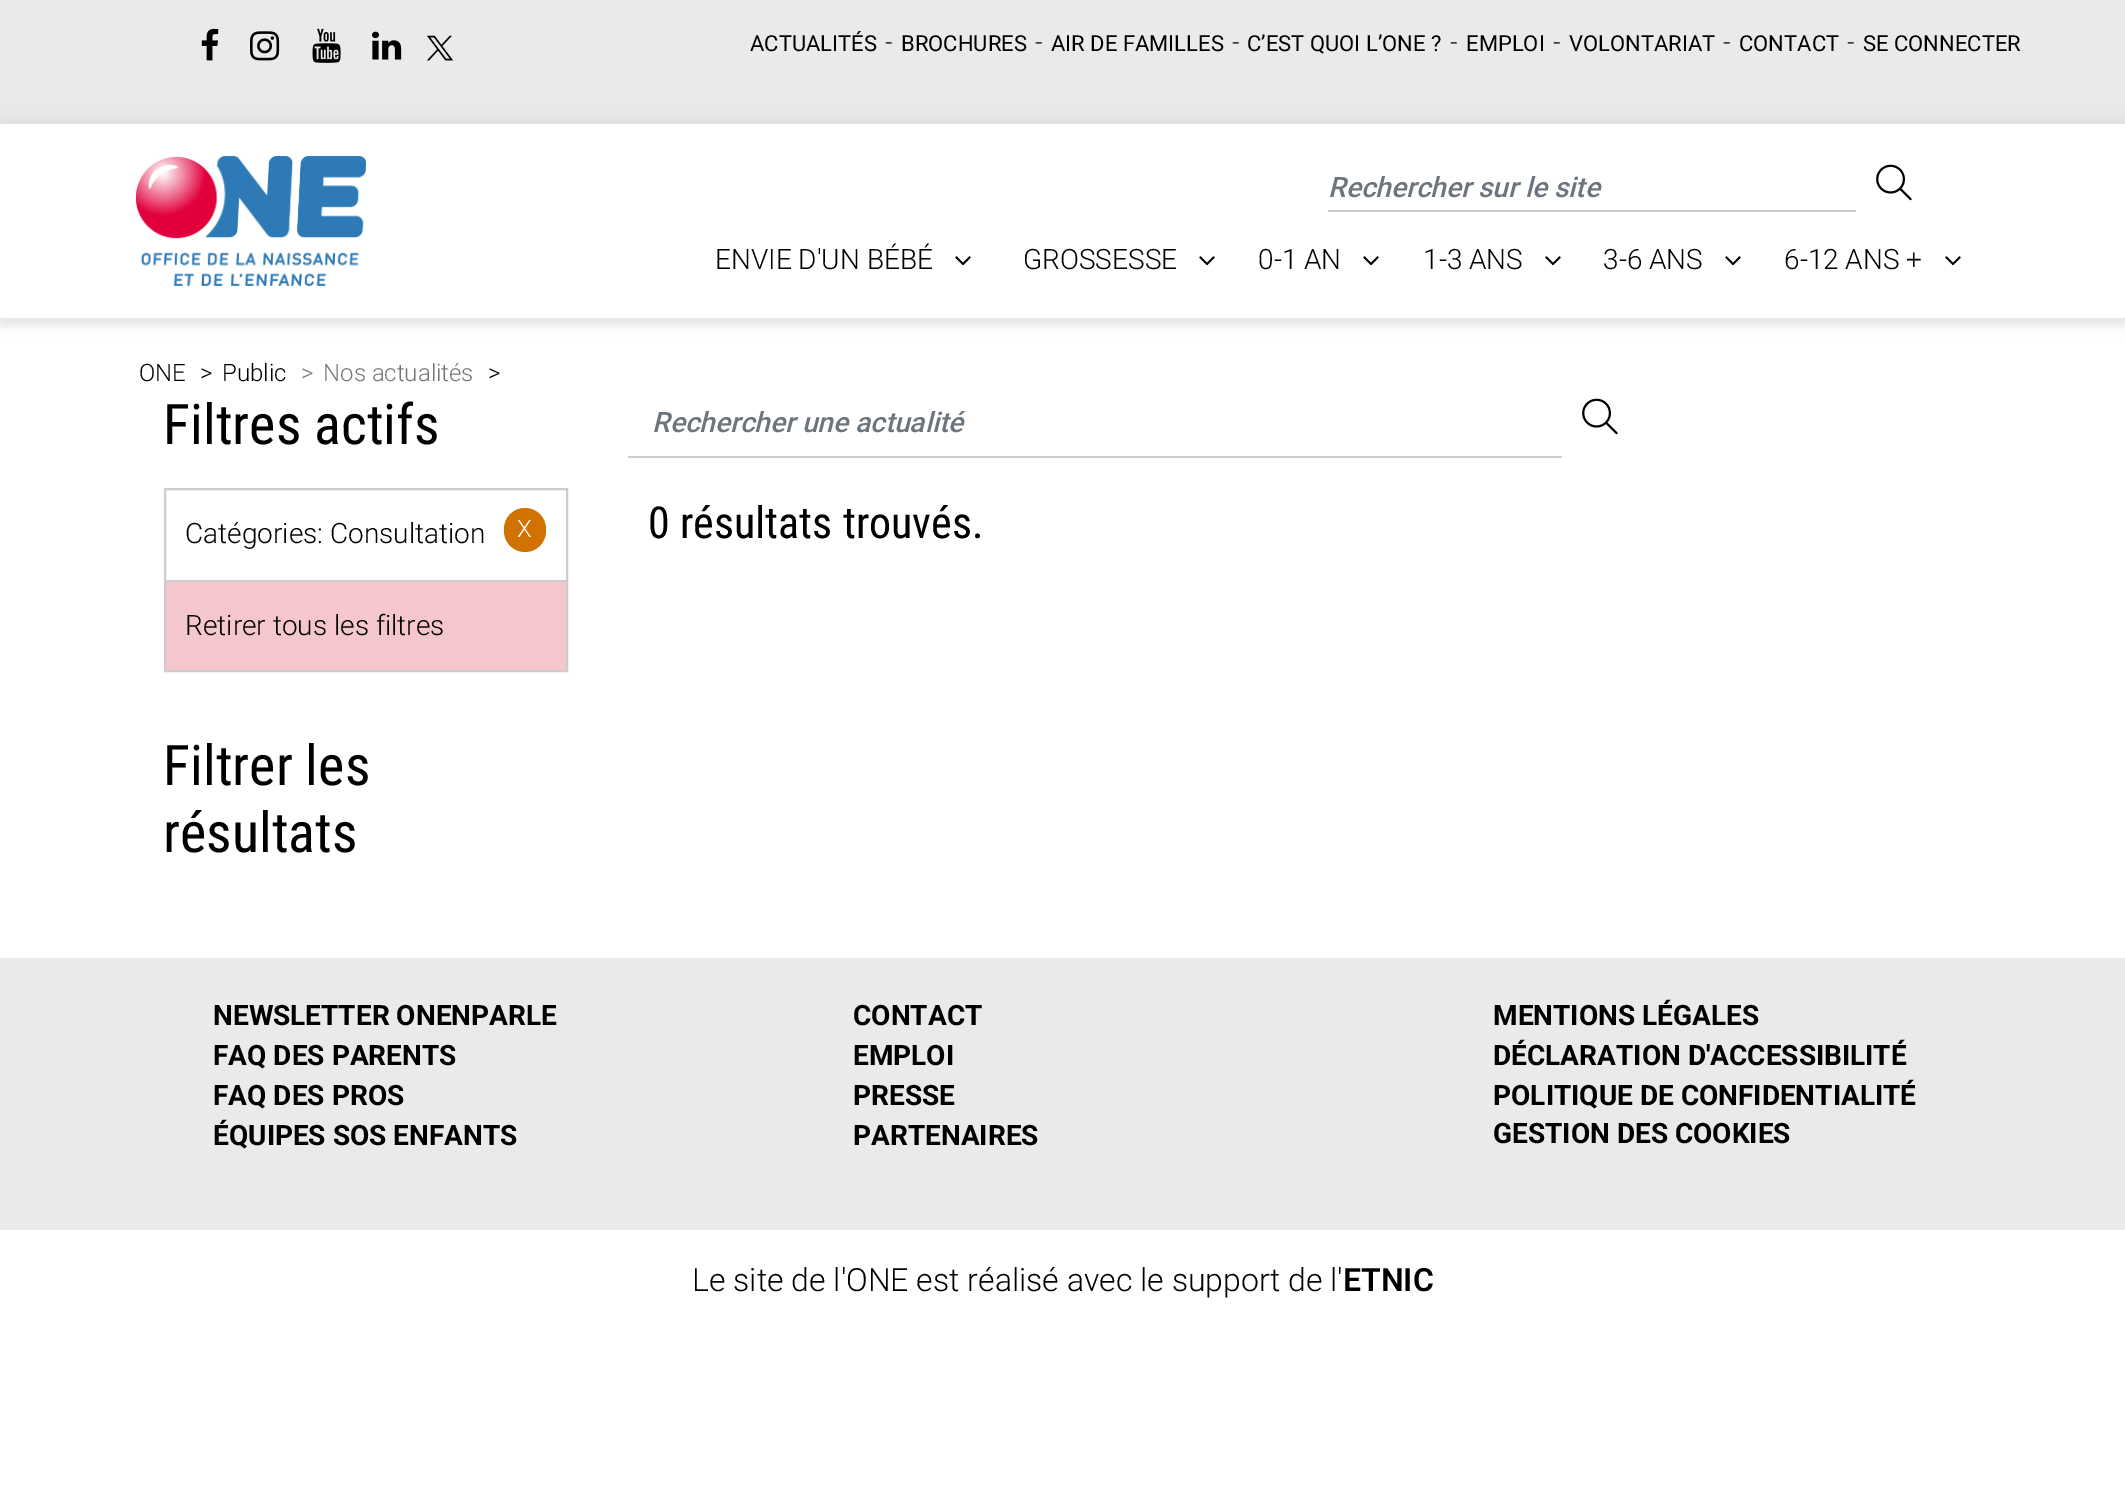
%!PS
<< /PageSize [2125 1496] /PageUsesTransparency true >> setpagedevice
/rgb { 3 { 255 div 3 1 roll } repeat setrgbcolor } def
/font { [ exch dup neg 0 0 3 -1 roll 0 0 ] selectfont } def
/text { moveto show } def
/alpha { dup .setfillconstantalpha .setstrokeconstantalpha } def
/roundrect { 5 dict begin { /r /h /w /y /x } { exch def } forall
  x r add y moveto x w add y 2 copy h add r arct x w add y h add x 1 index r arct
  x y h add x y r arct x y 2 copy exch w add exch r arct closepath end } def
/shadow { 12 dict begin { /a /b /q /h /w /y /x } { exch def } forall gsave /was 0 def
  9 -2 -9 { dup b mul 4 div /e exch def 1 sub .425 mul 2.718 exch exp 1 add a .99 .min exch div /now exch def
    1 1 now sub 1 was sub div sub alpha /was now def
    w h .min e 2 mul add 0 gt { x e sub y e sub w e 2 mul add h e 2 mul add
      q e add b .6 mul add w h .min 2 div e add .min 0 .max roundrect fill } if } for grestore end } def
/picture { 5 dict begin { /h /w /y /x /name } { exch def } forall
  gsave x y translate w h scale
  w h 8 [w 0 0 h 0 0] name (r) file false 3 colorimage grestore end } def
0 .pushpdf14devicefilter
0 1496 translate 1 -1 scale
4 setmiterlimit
255 255 255 rgb
0 0 2125 1496 rectfill
234 234 234 rgb
0 0 2125 124 rectfill
(img_01.rgb) 201 28 18 33 picture
(img_02.rgb) 250 31 30 30 picture
(img_03.rgb) 312 28 29 35 picture
(img_04.rgb) 372 31 30 29 picture
(img_05.rgb) 426 35 28 26 picture
gsave
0 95 moveto 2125 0 rlineto 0 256 rlineto -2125 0 rlineto closepath 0 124 moveto 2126 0 rlineto 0 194 rlineto -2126 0 rlineto closepath eoclip newpath
0 0 0 rgb
0 126 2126 194 0 10 0.08 shadow
grestore
gsave
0 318 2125 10 rectclip
0 0 0 rgb
0 132 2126 194 0 5 0.06 shadow
grestore
(img_06.rgb) 136 156 230 130 picture
204 204 204 rgb
1328 210 528 2 rectfill
(img_07.rgb) 1876 164 36 37 picture
(img_08.rgb) 955 256 16 10 picture
(img_08.rgb) 1199 256 16 10 picture
(img_08.rgb) 1363 256 16 10 picture
(img_08.rgb) 1545 256 16 10 picture
(img_08.rgb) 1725 256 16 10 picture
(img_08.rgb) 1945 256 16 10 picture
2 setlinewidth
165 489 402 182 rectstroke
208 113 0 rgb
504 508 42 44 21 roundrect fill
245 198 203 rgb
166 582 400 88 rectfill
204 204 204 rgb
166 580 400 2 rectfill
628 456 934 2 rectfill
(img_07.rgb) 1582 398 36 37 picture
234 234 234 rgb
0 958 2125 272 rectfill
/Roboto-Regular 22 font
0 0 0 rgb
(ACTUALITÉS) 750 51 text
/Roboto-Light 26 font
(-) 885 51 text
/Roboto-Regular 22 font
(BROCHURES) 901 51 text
/Roboto-Light 26 font
(-) 1035 51 text
/Roboto-Regular 22 font
(AIR DE FAMILLES) 1051 51 text
/Roboto-Light 26 font
(-) 1232 51 text
/Roboto-Regular 22 font
(C’EST QUOI L’ONE ?) 1247 51 text
/Roboto-Light 26 font
(-) 1450 51 text
/Roboto-Regular 22 font
(EMPLOI) 1466 51 text
/Roboto-Light 26 font
(-) 1553 51 text
/Roboto-Regular 22 font
(VOLONTARIAT) 1569 51 text
/Roboto-Light 26 font
(-) 1723 51 text
/Roboto-Regular 22 font
(CONTACT) 1739 51 text
/Roboto-Light 26 font
(-) 1847 51 text
/Roboto-Regular 22 font
(SE CONNECTER) 1863 51 text
/Roboto-MediumItalic 28 font
108 117 125 rgb
(Rechercher sur le site) 1328 197 text
/Roboto-Light 28 font
0 0 0 rgb
(ENVIE D'UN BÉBÉ) 715 269 text
(GROSSESSE) 1023 269 text
(0-1 AN) 1258 269 text
(1-3 ANS) 1423 269 text
(3-6 ANS) 1603 269 text
(6-12 ANS +) 1784 269 text
/Roboto-Light 24 font
(ONE) 139 381 text
(>) 200 381 text
(Public) 222 381 text
118 118 118 rgb
(>) 301 381 text
(Nos actualités) 323 381 text
0 0 0 rgb
(>) 488 381 text
/RobotoCondensed-Regular 56 font
(Filtres actifs) 163 444 text
/Roboto-Light 28 font
(Catégories: Consultation) 185 543 text
/Roboto-Light 24 font
255 255 255 rgb
(X) 517 537 text
/Roboto-Light 28 font
0 0 0 rgb
(Retirer tous les filtres) 185 635 text
/RobotoCondensed-Regular 56 font
(Filtrer les) 163 785 text
(résultats) 163 852 text
/Roboto-MediumItalic 28 font
108 117 125 rgb
(Rechercher une actualité) 652 432 text
/RobotoCondensed-Regular 44 font
0 0 0 rgb
(0 résultats trouvés.) 648 538 text
/Roboto-Bold 28 font
(NEWSLETTER ONENPARLE) 213 1025 text
(FAQ DES PARENTS) 213 1065 text
(FAQ DES PROS) 213 1105 text
(ÉQUIPES SOS ENFANTS) 213 1145 text
(CONTACT) 853 1025 text
(EMPLOI) 853 1065 text
(PRESSE) 853 1105 text
(PARTENAIRES) 853 1145 text
(MENTIONS LÉGALES) 1493 1025 text
(DÉCLARATION D'ACCESSIBILITÉ) 1493 1065 text
(POLITIQUE DE CONFIDENTIALITÉ) 1493 1105 text
(GESTION DES COOKIES) 1493 1143 text
/Roboto-Light 32 font
(Le site de l'ONE est réalisé avec le support de l') 692 1291 text
/Roboto-SemiBold 32 font
(ETNIC) 1343 1291 text
.poppdf14devicefilter showpage
